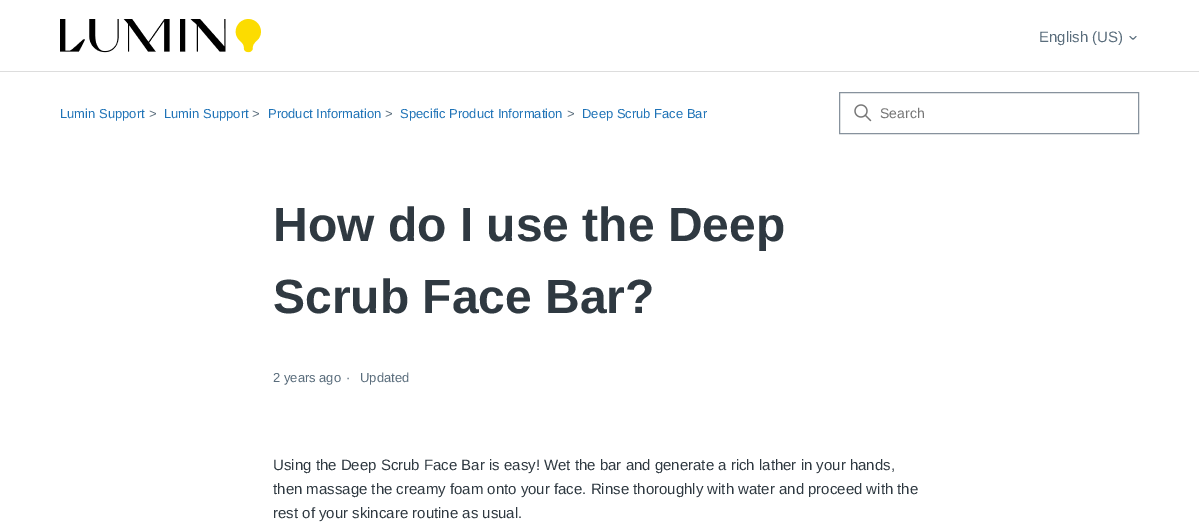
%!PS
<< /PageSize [1199 525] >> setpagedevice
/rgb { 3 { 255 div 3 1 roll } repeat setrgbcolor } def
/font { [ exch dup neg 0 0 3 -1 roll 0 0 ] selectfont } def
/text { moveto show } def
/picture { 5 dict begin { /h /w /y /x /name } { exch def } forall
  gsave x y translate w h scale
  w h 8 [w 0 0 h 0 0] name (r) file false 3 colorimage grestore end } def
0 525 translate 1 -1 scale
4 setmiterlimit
255 255 255 rgb
0 0 1199 525 rectfill
(img_01.rgb) 60 19 201 34 picture
90 109 124 rgb
1 setlinecap
1130 36.5 moveto 3.5 3.5 2.5 3.5 6 0 rcurveto stroke
221 221 221 rgb
0 71 1199 1 rectfill
135 146 157 rgb
0 setlinecap
839.5 92.5 299 41 rectstroke
(img_02.rgb) 854 104 18 18 picture
/LiberationSans-Regular 15 font
90 109 124 rgb
(English \(US\)) 1039 42 text
/LiberationSans-Regular 13 font
31 115 183 rgb
(Lumin Support) 60 118 text
90 109 124 rgb
(>) 149 118 text
31 115 183 rgb
(Lumin Support) 164 118 text
90 109 124 rgb
(>) 252 118 text
31 115 183 rgb
(Product Information) 268 118 text
90 109 124 rgb
(>) 385 118 text
31 115 183 rgb
(Specific Product Information) 400 118 text
90 109 124 rgb
(>) 567 118 text
31 115 183 rgb
(Deep Scrub Face Bar) 582 118 text
/LiberationSans-Regular 14 font
117 117 117 rgb
(Search) 880 118 text
/LiberationSans-Bold 48 font
47 57 65 rgb
(How do I use the Deep) 273 241 text
(Scrub Face Bar?) 273 313 text
/LiberationSans-Regular 13 font
90 109 124 rgb
(2 years ago) 273 382 text
(·) 346 382 text
(Updated) 360 382 text
/LiberationSans-Regular 15 font
47 57 65 rgb
(Using the Deep Scrub Face Bar is easy! Wet the bar and generate a rich lather in your hands,) 273 470 text
(then massage the creamy foam onto your face. Rinse thoroughly with water and proceed with the) 273 494 text
(rest of your skincare routine as usual.) 273 518 text
showpage
